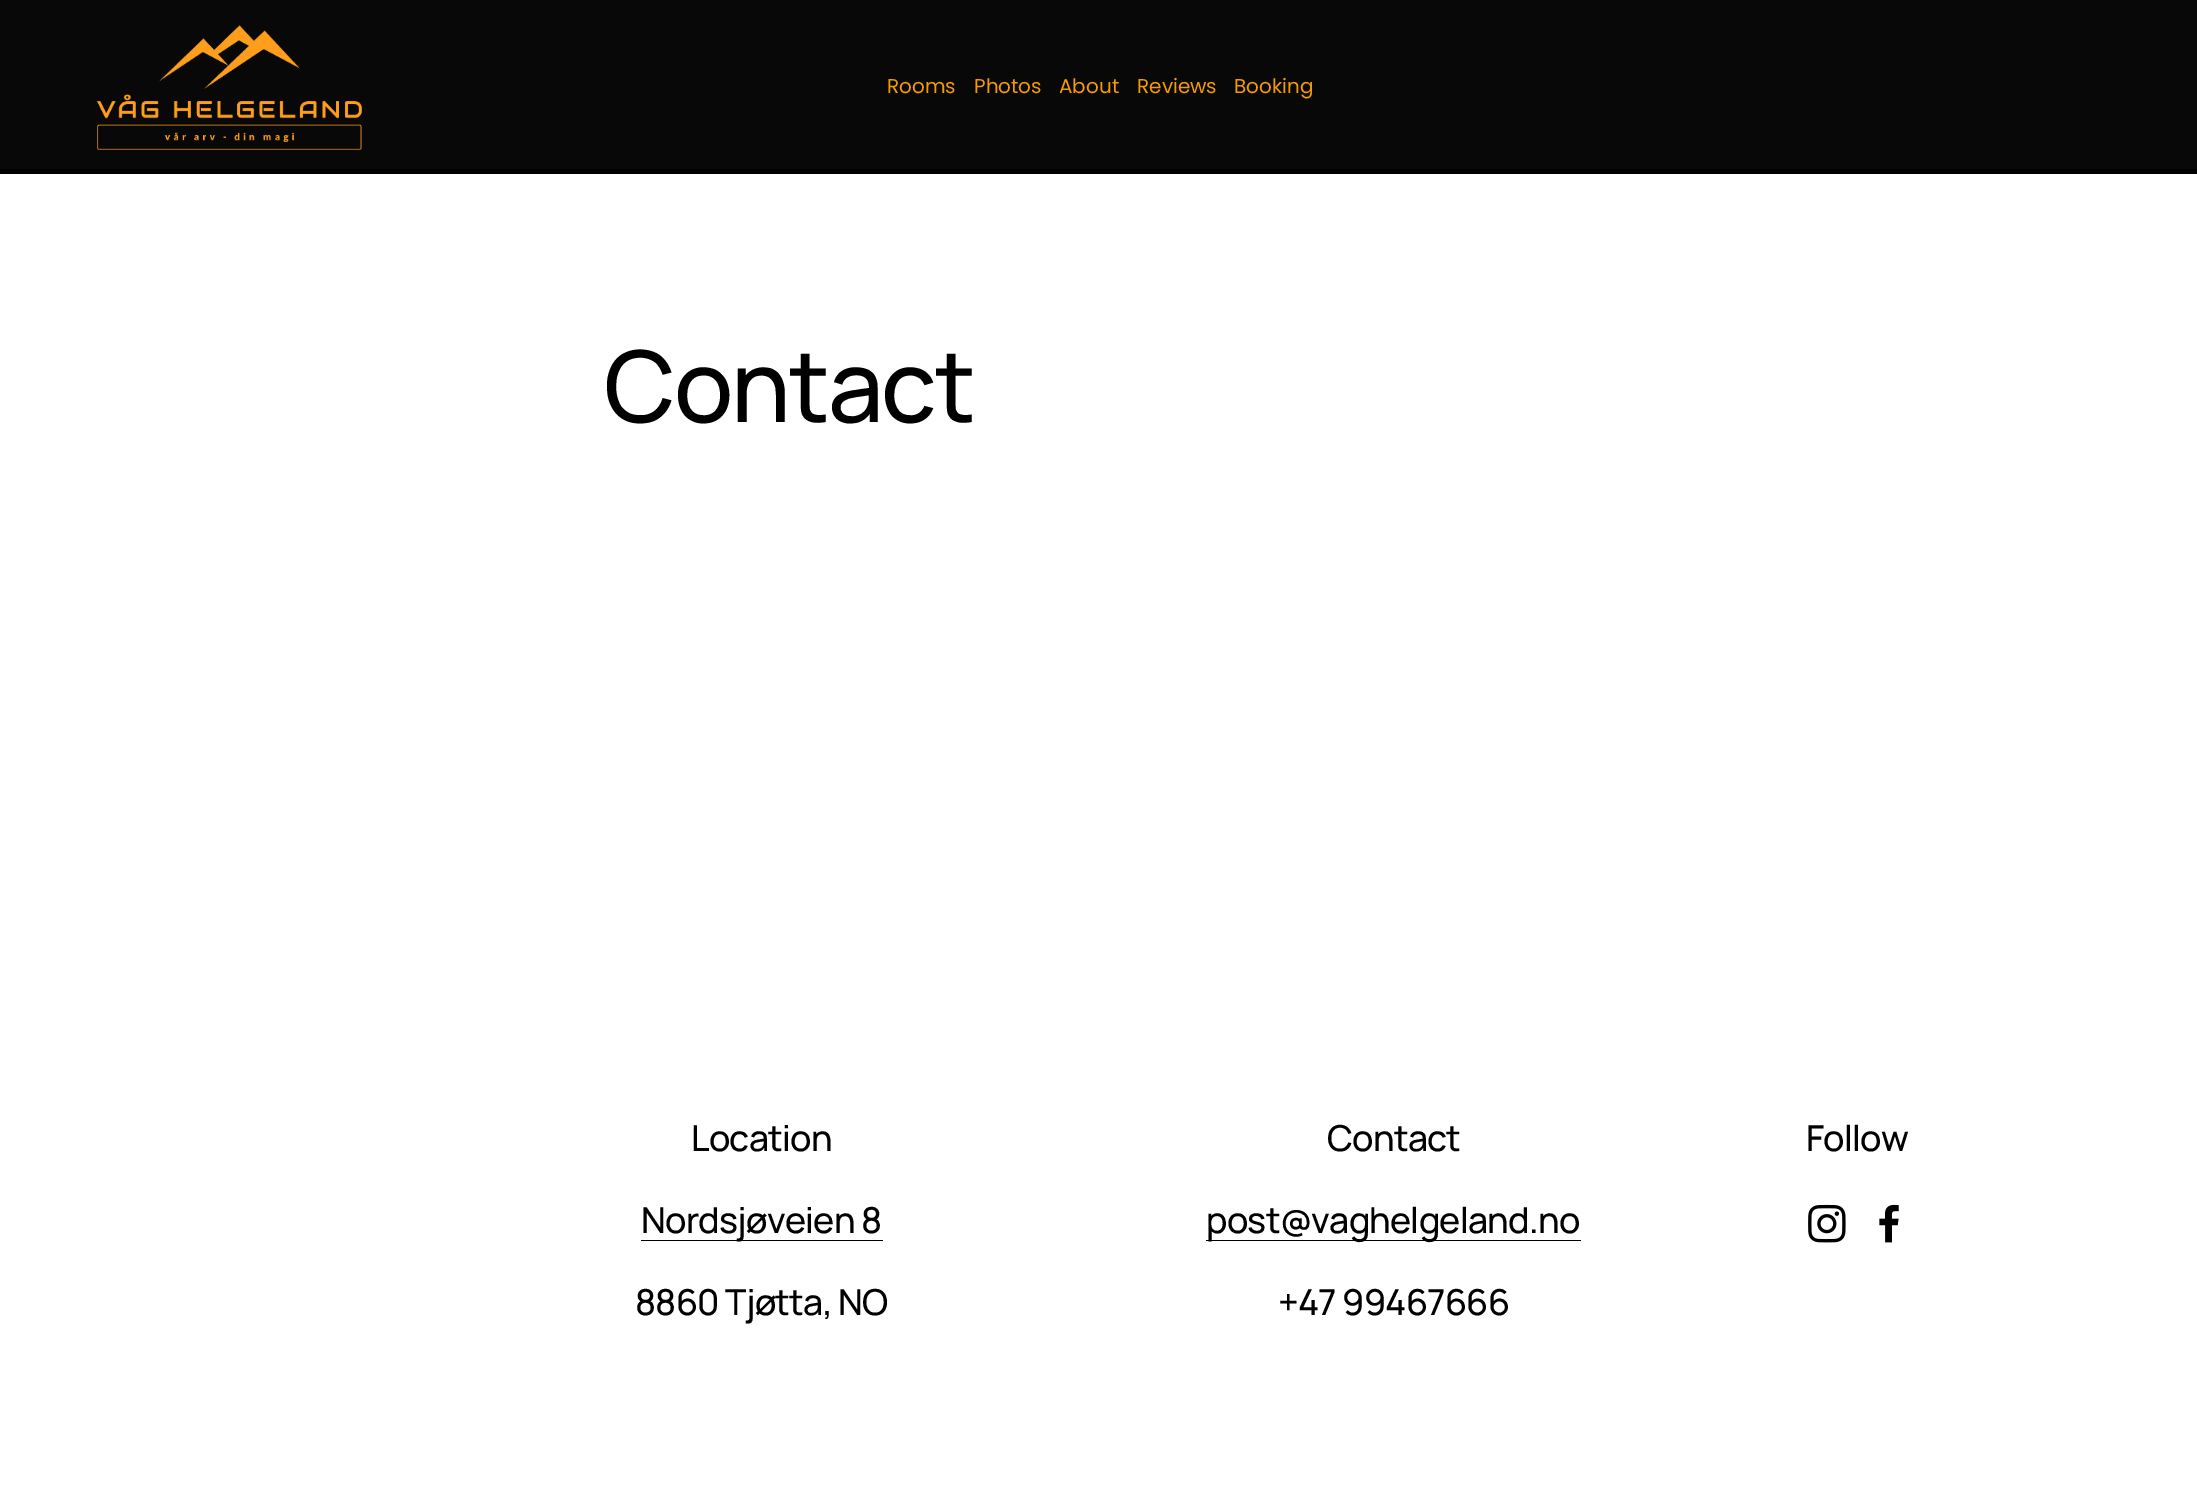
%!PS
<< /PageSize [2197 1493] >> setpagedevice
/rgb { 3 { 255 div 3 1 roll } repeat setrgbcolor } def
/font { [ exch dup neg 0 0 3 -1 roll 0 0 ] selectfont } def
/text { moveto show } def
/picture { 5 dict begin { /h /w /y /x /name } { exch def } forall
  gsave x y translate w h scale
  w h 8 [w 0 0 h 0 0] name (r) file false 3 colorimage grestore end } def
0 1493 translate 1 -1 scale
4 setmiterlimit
255 255 255 rgb
0 0 2197 1493 rectfill
8 8 8 rgb
0 0 2197 169 rectfill
(img_01.rgb) 96 25 266 125 picture
0 0 0 rgb
0 169 2197 5 rectfill
641 1240 242 1 rectfill
1206 1240 375 1 rectfill
(img_02.rgb) 1808 1204 38 39 picture
(img_03.rgb) 1879 1204 20 39 picture
/Poppins-Regular 20 font
245 155 0 rgb
(Rooms) 887 93 text
(Photos) 974 93 text
(About) 1059 93 text
(Reviews) 1137 93 text
(Booking) 1234 93 text
/Manrope-Medium 99 font
0 0 0 rgb
604 422 moveto -2 0 (Contact) ashow
/Manrope-Medium 35.75 font
691 1151 moveto -0.75 0 (Location) ashow
641 1233 moveto -0.75 0 (Nordsjøveien 8) ashow
635 1315 moveto -0.75 0 (8860 Tjøtta, NO) ashow
1327 1151 moveto -0.75 0 (Contact) ashow
1206 1233 moveto -0.75 0 (post@vaghelgeland.no) ashow
1278 1315 moveto -0.75 0 (+47 99467666) ashow
1806 1151 moveto -0.75 0 (Follow) ashow
showpage
